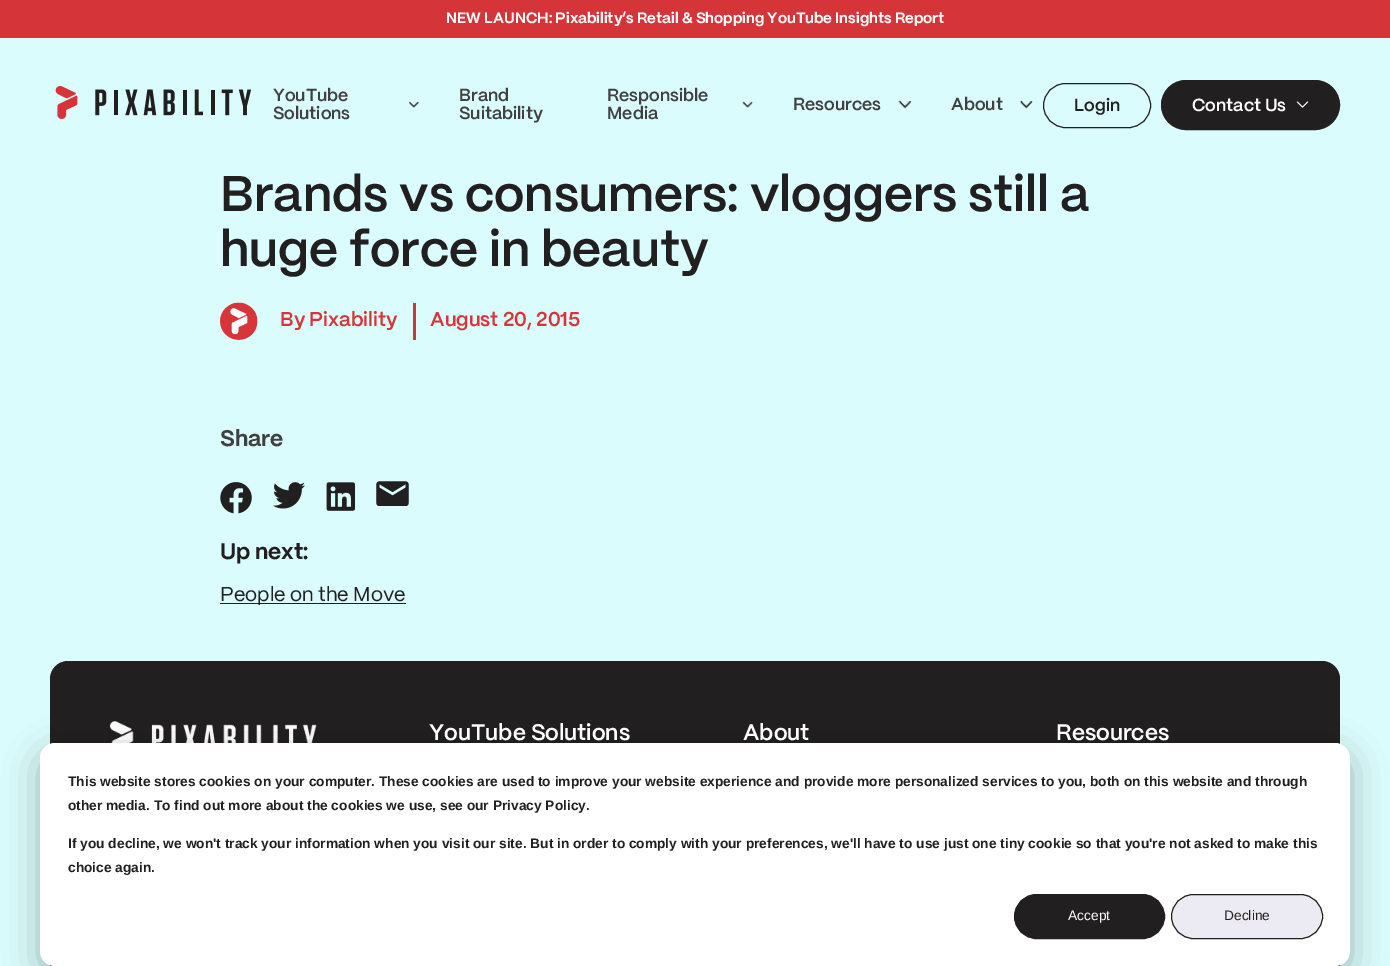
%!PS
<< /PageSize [1390 966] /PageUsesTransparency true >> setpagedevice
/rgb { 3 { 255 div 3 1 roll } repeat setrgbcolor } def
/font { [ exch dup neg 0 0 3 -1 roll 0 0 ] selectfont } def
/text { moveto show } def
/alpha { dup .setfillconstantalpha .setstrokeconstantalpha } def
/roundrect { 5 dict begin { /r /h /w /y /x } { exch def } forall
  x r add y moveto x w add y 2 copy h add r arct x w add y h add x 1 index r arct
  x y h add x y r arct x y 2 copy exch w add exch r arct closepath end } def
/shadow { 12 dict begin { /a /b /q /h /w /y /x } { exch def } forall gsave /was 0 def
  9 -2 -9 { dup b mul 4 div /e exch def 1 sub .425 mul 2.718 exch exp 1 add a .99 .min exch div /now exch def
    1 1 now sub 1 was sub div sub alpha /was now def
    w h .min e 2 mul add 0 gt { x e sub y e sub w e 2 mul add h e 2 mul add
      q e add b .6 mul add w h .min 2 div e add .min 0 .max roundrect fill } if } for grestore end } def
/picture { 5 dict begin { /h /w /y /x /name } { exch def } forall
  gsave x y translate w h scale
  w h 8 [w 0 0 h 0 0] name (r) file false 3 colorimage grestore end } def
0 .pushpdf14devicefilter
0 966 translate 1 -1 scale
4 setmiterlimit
219 252 252 rgb
0 0 1390 966 rectfill
213 53 56 rgb
0 0 1390 38 rectfill
(img_01.rgb) 55 85 197 34 picture
(img_02.rgb) 409 101 10 7 picture
(img_03.rgb) 742 101 11 7 picture
(img_04.rgb) 898 101 13 8 picture
(img_05.rgb) 1019 101 14 8 picture
34 31 32 rgb
1043.5 83.5 107 44 22 roundrect stroke
1161.5 80.5 178 49 24.5 roundrect gsave fill grestore
stroke
(img_06.rgb) 1296 101 13 7 picture
213 53 56 rgb
413 303 3 37 rectfill
(img_07.rgb) 220 302 38 38 picture
(img_08.rgb) 220 482 32 32 picture
(img_09.rgb) 273 482 32 27 picture
(img_10.rgb) 326 482 30 29 picture
(img_11.rgb) 376 481 33 25 picture
34 31 32 rgb
220 603 186 1 rectfill
50 661 1290 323 18 roundrect fill
(img_12.rgb) 110 721 207 22 picture
0 0 0 rgb
40 753 1310 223 15 17.5 0.28 shadow
255 255 255 rgb
40 743 1310 223 15 roundrect fill
33 31 32 rgb
1014.5 894.5 150 44 22 roundrect gsave fill grestore
stroke
236 234 242 rgb
1171.5 894.5 151 44 22 roundrect gsave fill grestore
33 31 32 rgb
stroke
/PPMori-Bold 15 font
255 255 255 rgb
(NEW LAUNCH: Pixability’s Retail & Shopping YouTube Insights Report) 446 23 text
/PPMori-SemiBold 17.5 font
64 64 64 rgb
(YouTube) 273 101 text
(Solutions) 273 119 text
(Brand) 459 101 text
(Suitability) 459 119 text
(Responsible) 607 101 text
(Media) 607 119 text
(Resources) 793 110 text
(About) 951 110 text
34 31 32 rgb
(Login) 1074 111 text
255 255 255 rgb
(Contact Us) 1192 111 text
/PPMori-SemiBold 50 font
34 31 32 rgb
(Brands vs consumers: vloggers still a) 220 211 text
(huge force in beauty) 220 266 text
/PPMori-SemiBold 20 font
213 53 56 rgb
(By Pixability) 280 326 text
(August 20, 2015) 430 326 text
/PPMori-Bold 22.5 font
64 64 64 rgb
(Share) 220 446 text
34 31 32 rgb
(Up next:) 220 559 text
/PPMori-Regular 20 font
(People on the Move) 220 601 text
/PPMori-SemiBold 22.5 font
255 255 255 rgb
(YouTube Solutions) 429 740 text
(About) 743 740 text
(Resources) 1056 740 text
/LiberationSans-Bold 13.75 font
34 31 32 rgb
(This website stores cookies on your computer. These cookies are used to improve your website experience and provide more personalized services to you, both on this website and through) 68 786 text
(other media. To find out more about the cookies we use, see our Privacy Policy.) 68 810 text
(If you decline, we won't track your information when you visit our site. But in order to comply with your preferences, we'll have to use just one tiny cookie so that you're not asked to make this) 68 848 text
(choice again.) 68 872 text
/LiberationSans-Regular 13.75 font
255 255 255 rgb
(Accept) 1068 920 text
34 31 32 rgb
(Decline) 1224 920 text
.poppdf14devicefilter showpage
